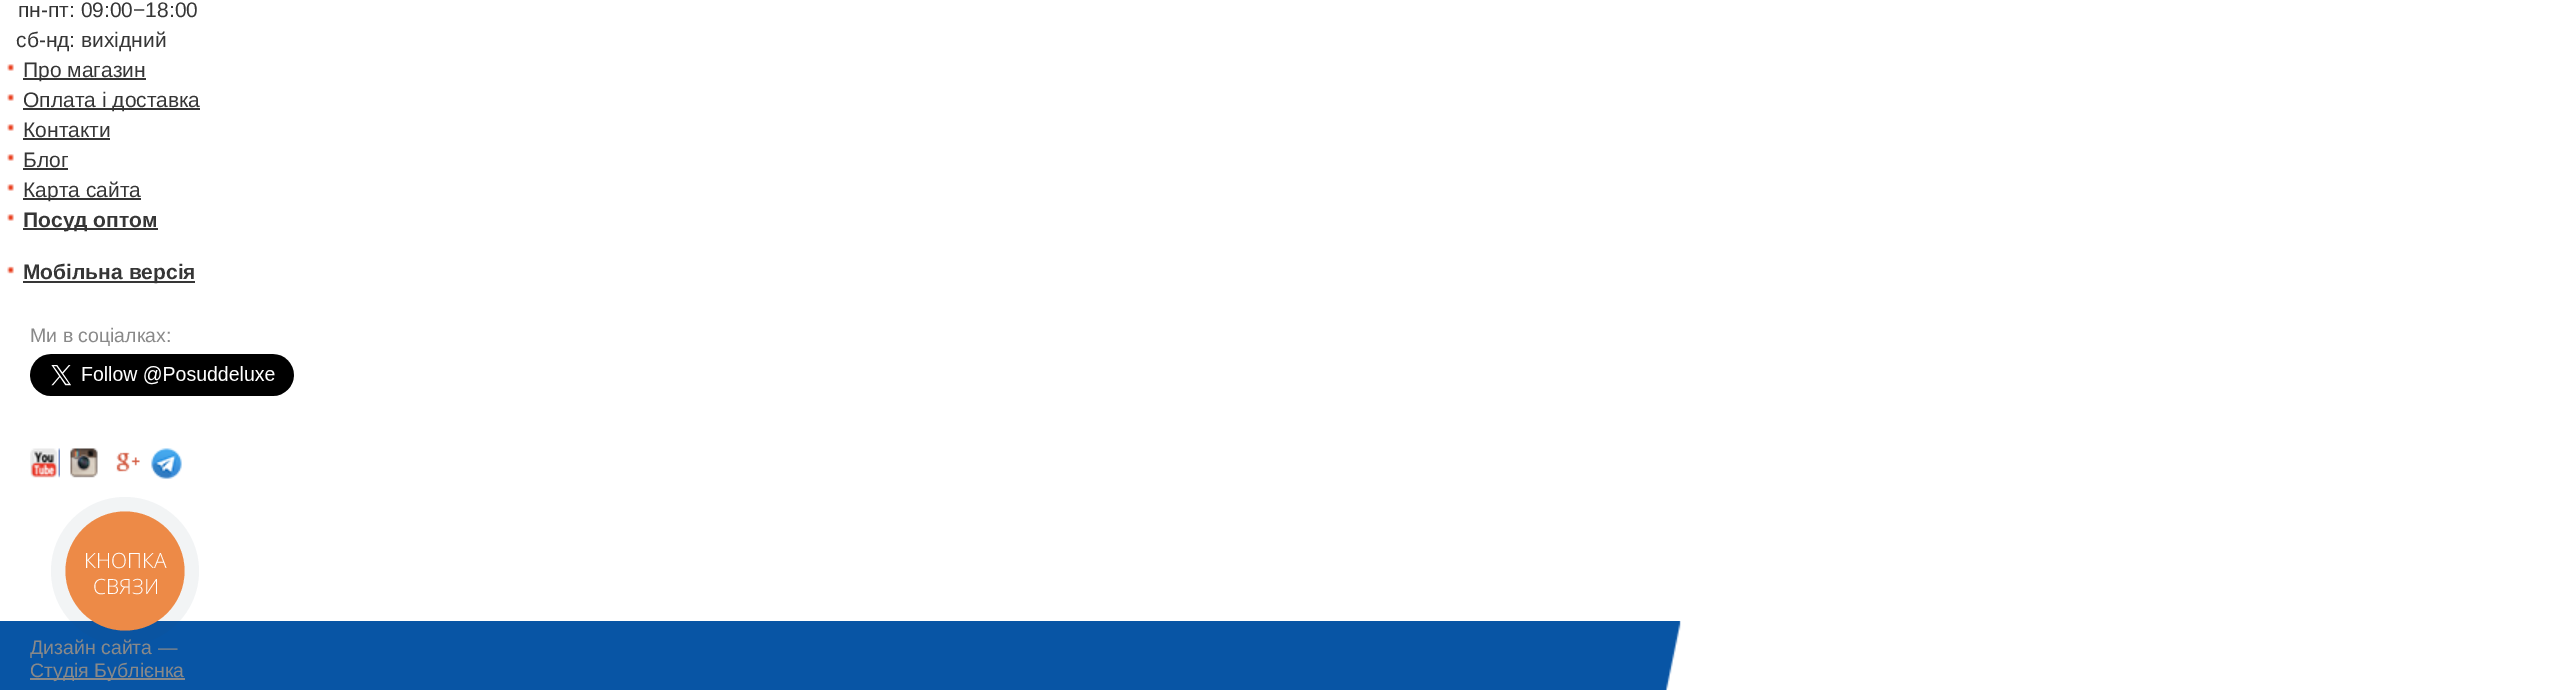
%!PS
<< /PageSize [2576 690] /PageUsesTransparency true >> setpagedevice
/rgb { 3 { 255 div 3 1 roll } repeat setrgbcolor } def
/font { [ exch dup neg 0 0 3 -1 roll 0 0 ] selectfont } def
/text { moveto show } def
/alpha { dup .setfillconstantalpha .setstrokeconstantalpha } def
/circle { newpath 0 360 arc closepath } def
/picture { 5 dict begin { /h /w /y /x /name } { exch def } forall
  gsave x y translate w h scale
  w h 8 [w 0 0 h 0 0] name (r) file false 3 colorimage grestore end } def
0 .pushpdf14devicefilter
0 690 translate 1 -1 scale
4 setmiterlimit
255 255 255 rgb
0 0 2576 690 rectfill
(img_01.rgb) 0 621 1681 69 picture
(img_02.rgb) 7 64 7 7 picture
54 54 54 rgb
23 78 123 2 rectfill
(img_02.rgb) 7 94 7 7 picture
23 108 177 2 rectfill
(img_02.rgb) 7 124 7 7 picture
23 138 87 2 rectfill
(img_02.rgb) 7 154 7 7 picture
23 168 45 2 rectfill
(img_02.rgb) 7 184 7 7 picture
23 198 118 2 rectfill
(img_02.rgb) 7 214 7 7 picture
23 228 135 2 rectfill
(img_03.rgb) 7 266 7 8 picture
23 281 172 2 rectfill
(img_04.rgb) 30 354 264 42 picture
(img_05.rgb) 30 448 30 30 picture
(img_06.rgb) 70 448 28 30 picture
(img_07.rgb) 116 452 24 20 picture
(img_08.rgb) 151 448 31 31 picture
137 137 137 rgb
30 678 155 2 rectfill
0.06 alpha
42 64 93 rgb
125 571 74 circle fill
1 alpha
237 138 71 rgb
125 571 59.5 circle fill
/LiberationSans-Regular 21 font
54 54 54 rgb
(пн-пт: 09:00−18:00) 18 17 text
(сб-нд: вихiдний) 16 47 text
(Про магазин) 23 77 text
(Оплата і доставка) 23 107 text
(Контакти) 23 137 text
(Блог) 23 167 text
(Карта сайта) 23 197 text
/LiberationSans-Bold 21 font
(Посуд оптом) 23 227 text
(Мобільна версія) 23 279 text
/LiberationSans-Regular 19.5 font
137 137 137 rgb
(Ми в соціалках:) 30 342 text
(Дизайн сайта —) 30 654 text
(Студія Бублієнка) 30 677 text
/OpenSans-Light 21 font
255 255 255 rgb
(КНОПКА) 84 568 text
(СВЯЗИ) 93 594 text
.poppdf14devicefilter showpage
